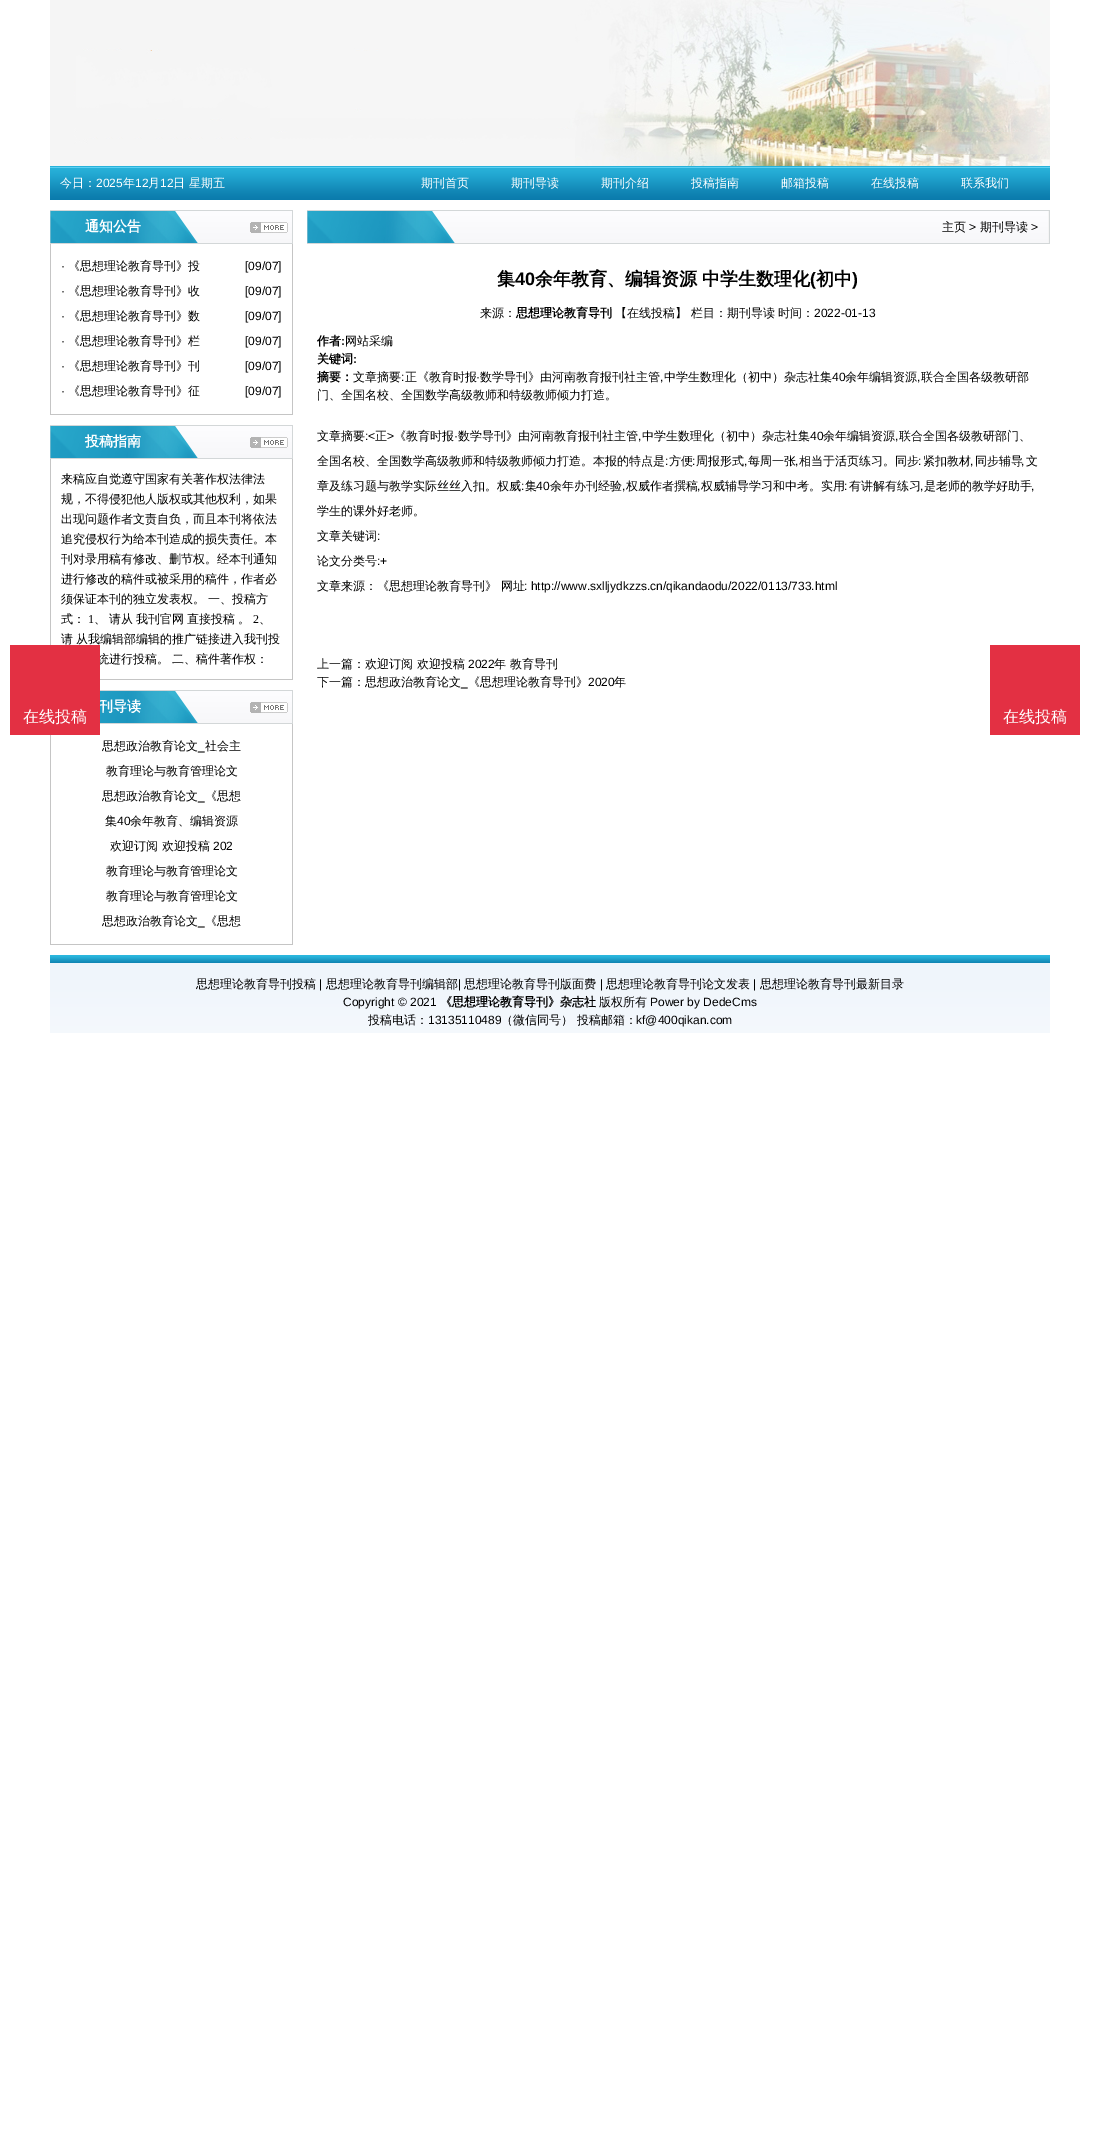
%!PS
<< /PageSize [1100 2149] >> setpagedevice
/rgb { 3 { 255 div 3 1 roll } repeat setrgbcolor } def
/font { [ exch dup neg 0 0 3 -1 roll 0 0 ] selectfont } def
/text { moveto show } def
/picture { 5 dict begin { /h /w /y /x /name } { exch def } forall
  gsave x y translate w h scale
  w h 8 [w 0 0 h 0 0] name (r) file false 3 colorimage grestore end } def
0 2149 translate 1 -1 scale
4 setmiterlimit
255 255 255 rgb
0 0 1100 2149 rectfill
(img_01.rgb) 50 0 1000 166 picture
(img_02.rgb) 50 166 1000 34 picture
(img_03.rgb) 50 210 243 34 picture
197 197 197 rgb
292 244 1 171 rectfill
50 414 243 1 rectfill
50 244 1 171 rectfill
(img_03.rgb) 50 425 243 34 picture
292 459 1 221 rectfill
100 679 193 1 rectfill
50 459 1 186 rectfill
(img_04.rgb) 100 690 193 34 picture
292 724 1 221 rectfill
50 944 243 1 rectfill
50 735 1 210 rectfill
(img_05.rgb) 307 210 743 34 picture
227 48 67 rgb
990 645 90 90 rectfill
(img_06.rgb) 50 955 1000 78 picture
/WenQuanYiZenHei-Medium 12 font
255 255 255 rgb
(今日：) 60 187 text
/LiberationSans-Regular 12 font
(2025) 96 187 text
/WenQuanYiZenHei-Medium 12 font
(年) 123 187 text
/LiberationSans-Regular 12 font
(12) 135 187 text
/WenQuanYiZenHei-Medium 12 font
(月) 148 187 text
/LiberationSans-Regular 12 font
(12) 160 187 text
/WenQuanYiZenHei-Medium 12 font
(日 星期五) 173 187 text
(期刊首页) 421 187 text
(期刊导读) 511 187 text
(期刊介绍) 601 187 text
(投稿指南) 691 187 text
(邮箱投稿) 781 187 text
(在线投稿) 871 187 text
(联系我们) 961 187 text
/WenQuanYiZenHei-Bold 14 font
(通知公告) 85 231 text
/LiberationSans-Regular 12 font
0 0 0 rgb
(·) 61 270 text
/WenQuanYiZenHei-Medium 12 font
(《思想理论教育导刊》投) 68 270 text
/LiberationSans-Regular 12 font
([09/07]) 245 270 text
(·) 61 295 text
/WenQuanYiZenHei-Medium 12 font
(《思想理论教育导刊》收) 68 295 text
/LiberationSans-Regular 12 font
([09/07]) 245 295 text
(·) 61 320 text
/WenQuanYiZenHei-Medium 12 font
(《思想理论教育导刊》数) 68 320 text
/LiberationSans-Regular 12 font
([09/07]) 245 320 text
(·) 61 345 text
/WenQuanYiZenHei-Medium 12 font
(《思想理论教育导刊》栏) 68 345 text
/LiberationSans-Regular 12 font
([09/07]) 245 345 text
(·) 61 370 text
/WenQuanYiZenHei-Medium 12 font
(《思想理论教育导刊》刊) 68 370 text
/LiberationSans-Regular 12 font
([09/07]) 245 370 text
(·) 61 395 text
/WenQuanYiZenHei-Medium 12 font
(《思想理论教育导刊》征) 68 395 text
/LiberationSans-Regular 12 font
([09/07]) 245 395 text
/WenQuanYiZenHei-Bold 14 font
255 255 255 rgb
(投稿指南) 85 446 text
/WenQuanYiZenHei-Medium 12 font
0 0 0 rgb
(来稿应自觉遵守国家有关著作权法律法) 61 483 text
(规，不得侵犯他人版权或其他权利，如果) 61 503 text
(出现问题作者文责自负，而且本刊将依法) 61 523 text
(追究侵权行为给本刊造成的损失责任。本) 61 543 text
(刊对录用稿有修改、删节权。经本刊通知) 61 563 text
(进行修改的稿件或被采用的稿件，作者必) 61 583 text
61 603 moveto -1 0 32 (须保证本刊的独立发表权。 一、投稿方) widthshow
(式：) 61 623 text
/LiberationSerif-Regular 12 font
(1) 88 623 text
/WenQuanYiZenHei-Medium 12 font
94 623 moveto -0.5 0 32 (、 请从 我刊官网 直接投稿 。) widthshow
/LiberationSerif-Regular 12 font
(2) 253 623 text
/WenQuanYiZenHei-Medium 12 font
(、) 259 623 text
61 643 moveto -1 0 32 (请 从我编辑部编辑的推广链接进入我刊投) widthshow
97 663 moveto -1 0 32 (统进行投稿。 二、稿件著作权：) widthshow
/WenQuanYiZenHei-Bold 14 font
255 255 255 rgb
(刊导读) 99 711 text
227 48 67 rgb
10 645 90 90 rectfill
/WenQuanYiZenHei-Medium 16 font
255 255 255 rgb
(在线投稿) 23 722 text
/WenQuanYiZenHei-Medium 12 font
0 0 0 rgb
(思想政治教育论文) 102 750 text
/LiberationSans-Regular 12 font
(_) 198 750 text
/WenQuanYiZenHei-Medium 12 font
(社会主) 205 750 text
(教育理论与教育管理论文) 106 775 text
(思想政治教育论文) 102 800 text
/LiberationSans-Regular 12 font
(_) 198 800 text
/WenQuanYiZenHei-Medium 12 font
(《思想) 205 800 text
(集) 105 825 text
/LiberationSans-Regular 12 font
(40) 117 825 text
/WenQuanYiZenHei-Medium 12 font
(余年教育、编辑资源) 130 825 text
(欢迎订阅 欢迎投稿) 110 850 text
/LiberationSans-Regular 12 font
(202) 213 850 text
/WenQuanYiZenHei-Medium 12 font
(教育理论与教育管理论文) 106 875 text
(教育理论与教育管理论文) 106 900 text
(思想政治教育论文) 102 925 text
/LiberationSans-Regular 12 font
(_) 198 925 text
/WenQuanYiZenHei-Medium 12 font
(《思想) 205 925 text
(主页) 942 231 text
/LiberationSans-Regular 12 font
(>) 969 231 text
/WenQuanYiZenHei-Medium 12 font
(期刊导读) 980 231 text
/LiberationSans-Regular 12 font
(>) 1031 231 text
/WenQuanYiZenHei-Bold 18 font
(集) 497 285 text
/LiberationSans-Bold 18 font
(40) 515 285 text
/WenQuanYiZenHei-Bold 18 font
(余年教育、编辑资源) 535 285 text
(中学生数理化) 702 285 text
/LiberationSans-Bold 18 font
(\() 810 285 text
/WenQuanYiZenHei-Bold 18 font
(初中) 816 285 text
/LiberationSans-Bold 18 font
(\)) 852 285 text
/WenQuanYiZenHei-Medium 12 font
(来源：) 480 317 text
/WenQuanYiZenHei-Bold 12 font
(思想理论教育导刊) 516 317 text
/WenQuanYiZenHei-Medium 12 font
(【在线投稿】 栏目：期刊导读 时间：) 615 317 text
/LiberationSans-Regular 12 font
(2022-01-13) 814 317 text
/WenQuanYiZenHei-Bold 12 font
(作者) 317 345 text
/LiberationSans-Bold 12 font
(:) 341 345 text
/WenQuanYiZenHei-Medium 12 font
(网站采编) 345 345 text
/WenQuanYiZenHei-Bold 12 font
(关键词) 317 363 text
/LiberationSans-Bold 12 font
(:) 353 363 text
/WenQuanYiZenHei-Bold 12 font
(摘要：) 317 381 text
/WenQuanYiZenHei-Medium 12 font
(文章摘要 正《教育时报) 353 381 text
(数学导刊》由河南教育报刊社主管 中学生数理化（初中）杂志社集) 480 381 text
/LiberationSans-Regular 12 font
(40) 832 381 text
/WenQuanYiZenHei-Medium 12 font
(余年编辑资源 联合全国各级教研部) 845 381 text
/LiberationSans-Regular 12 font
(:) 401 381 text
(·) 476 381 text
(,) 660 381 text
(,) 917 381 text
/WenQuanYiZenHei-Medium 12 font
(门、全国名校、全国数学高级教师和特级教师倾力打造。) 317 399 text
(文章摘要) 317 440 text
/LiberationSans-Regular 12 font
(:<) 365 440 text
/WenQuanYiZenHei-Medium 12 font
(正) 375 440 text
/LiberationSans-Regular 12 font
(>) 387 440 text
/WenQuanYiZenHei-Medium 12 font
(《教育时报) 394 440 text
/LiberationSans-Regular 12 font
(·) 454 440 text
/WenQuanYiZenHei-Medium 12 font
(数学导刊》由河南教育报刊社主管 中学生数理化（初中）杂志社集) 458 440 text
/LiberationSans-Regular 12 font
(40) 810 440 text
/WenQuanYiZenHei-Medium 12 font
(余年编辑资源 联合全国各级教研部门、) 823 440 text
/LiberationSans-Regular 12 font
(,) 638 440 text
(,) 895 440 text
/WenQuanYiZenHei-Medium 12 font
(全国名校、全国数学高级教师和特级教师倾力打造。本报的特点是 方便 周报形式 每周一张 相当于活页练习。同步 紧扣教材 同步辅导 文) 317 465 text
/LiberationSans-Regular 12 font
(:) 665 465 text
(:) 692 465 text
(,) 744 465 text
(,) 795 465 text
(:) 918 465 text
(,) 970 465 text
(,) 1021 465 text
/WenQuanYiZenHei-Medium 12 font
(章及练习题与教学实际丝丝入扣。权威 集) 317 490 text
/LiberationSans-Regular 12 font
(40) 536 490 text
/WenQuanYiZenHei-Medium 12 font
(余年办刊经验 权威作者撰稿 权威辅导学习和中考。实用 有讲解有练习 是老师的教学好助手) 550 490 text
/LiberationSans-Regular 12 font
(:) 521 490 text
(,) 622 490 text
(,) 697 490 text
(:) 844 490 text
(,) 920 490 text
(,) 1031 490 text
/WenQuanYiZenHei-Medium 12 font
(学生的课外好老师。) 317 515 text
(文章关键词) 317 540 text
/LiberationSans-Regular 12 font
(:) 377 540 text
/WenQuanYiZenHei-Medium 12 font
(论文分类号) 317 565 text
/LiberationSans-Regular 12 font
(:+) 377 565 text
/WenQuanYiZenHei-Medium 12 font
(文章来源：《思想理论教育导刊》 网址) 317 590 text
/LiberationSans-Regular 12 font
(: http://www.sxlljydkzzs.cn/qikandaodu/2022/0113/733.html) 524 590 text
/WenQuanYiZenHei-Medium 12 font
(上一篇：欢迎订阅 欢迎投稿) 317 668 text
/LiberationSans-Regular 12 font
(2022) 468 668 text
/WenQuanYiZenHei-Medium 12 font
(年 教育导刊) 494 668 text
(下一篇：思想政治教育论文) 317 686 text
(《思想理论教育导刊》) 468 686 text
/LiberationSans-Regular 12 font
(2020) 588 686 text
/WenQuanYiZenHei-Medium 12 font
(年) 614 686 text
/LiberationSans-Regular 12 font
(_) 461 686 text
/WenQuanYiZenHei-Medium 16 font
255 255 255 rgb
(在线投稿) 1003 722 text
/WenQuanYiZenHei-Medium 12 font
0 0 0 rgb
(思想理论教育导刊投稿) 196 988 text
/LiberationSans-Regular 12 font
(|) 319 988 text
/WenQuanYiZenHei-Medium 12 font
(思想理论教育导刊编辑部) 326 988 text
/LiberationSans-Regular 12 font
(|) 458 988 text
/WenQuanYiZenHei-Medium 12 font
(思想理论教育导刊版面费) 464 988 text
/LiberationSans-Regular 12 font
(|) 600 988 text
/WenQuanYiZenHei-Medium 12 font
(思想理论教育导刊论文发表) 606 988 text
/LiberationSans-Regular 12 font
(|) 753 988 text
/WenQuanYiZenHei-Medium 12 font
(思想理论教育导刊最新目录) 760 988 text
/LiberationSans-Regular 12 font
(Copyright © 2021) 343 1006 text
/WenQuanYiZenHei-Bold 12 font
(《思想理论教育导刊》杂志社) 440 1006 text
/WenQuanYiZenHei-Medium 12 font
(版权所有) 599 1006 text
/LiberationSans-Regular 12 font
(Power by DedeCms) 650 1006 text
/WenQuanYiZenHei-Medium 12 font
(投稿电话：) 368 1024 text
/LiberationSans-Regular 12 font
(13135110489) 428 1024 text
/WenQuanYiZenHei-Medium 12 font
(（微信同号） 投稿邮箱：) 501 1024 text
/LiberationSans-Regular 12 font
(kf@400qikan.com) 636 1024 text
showpage
